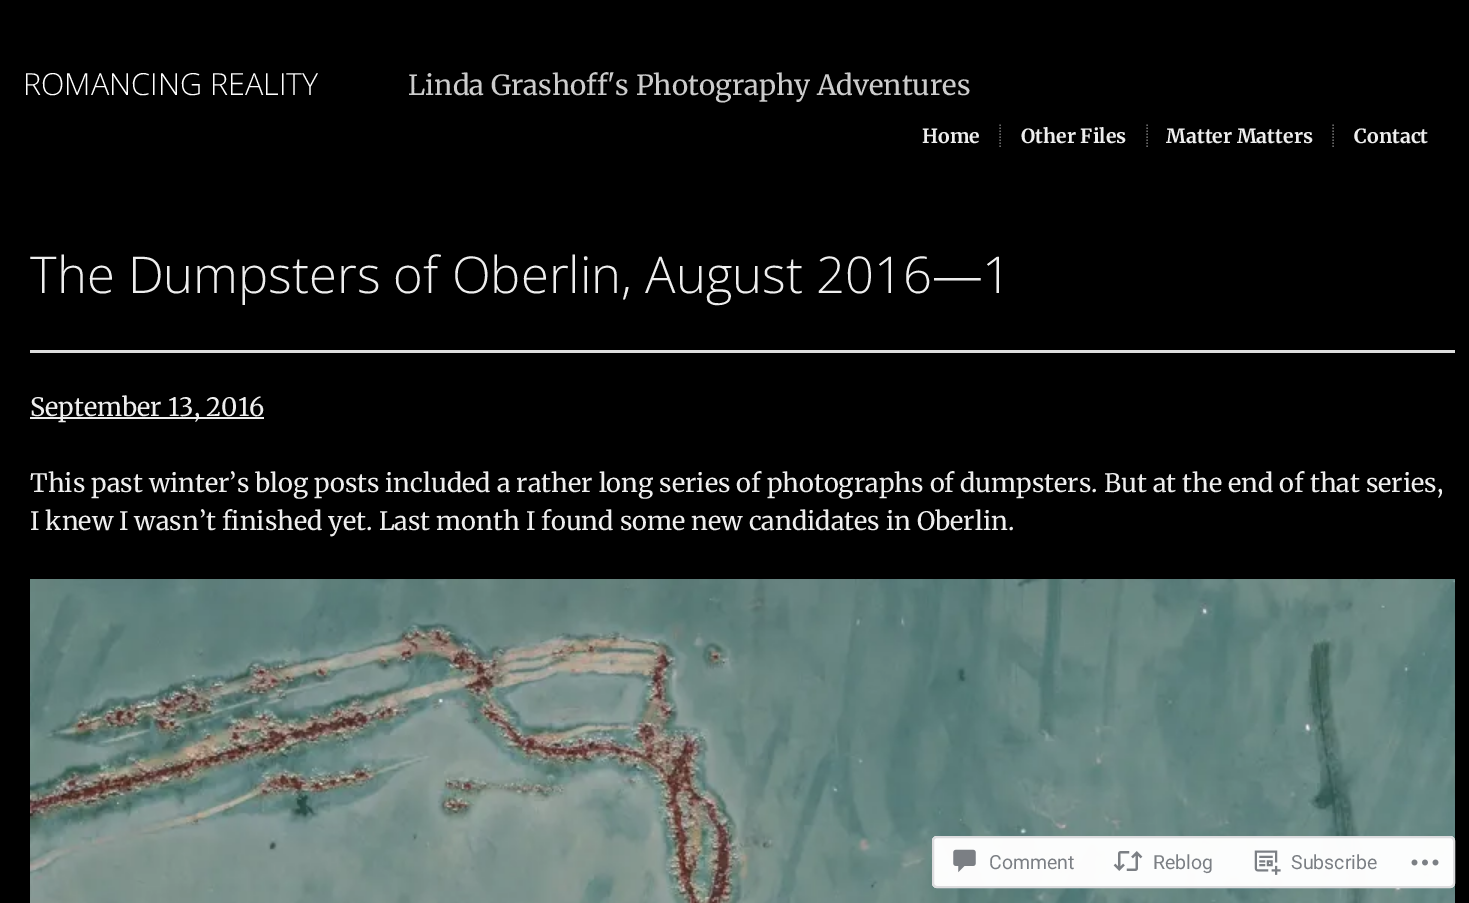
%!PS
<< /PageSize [1469 903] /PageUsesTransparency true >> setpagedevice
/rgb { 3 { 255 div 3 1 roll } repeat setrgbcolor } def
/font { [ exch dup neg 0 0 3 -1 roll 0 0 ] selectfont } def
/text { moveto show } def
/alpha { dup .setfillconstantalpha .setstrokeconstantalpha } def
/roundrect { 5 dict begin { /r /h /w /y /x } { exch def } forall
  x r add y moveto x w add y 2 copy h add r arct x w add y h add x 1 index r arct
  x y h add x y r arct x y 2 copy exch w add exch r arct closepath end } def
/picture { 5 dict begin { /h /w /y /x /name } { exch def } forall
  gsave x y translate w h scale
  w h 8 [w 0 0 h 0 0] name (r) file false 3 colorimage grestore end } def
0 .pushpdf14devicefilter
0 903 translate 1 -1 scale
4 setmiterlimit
0 0 0 rgb
0 0 1469 903 rectfill
102 102 102 rgb
1.5 setlinewidth
[1.5 1.5] 0 setdash
1000 124.5 moveto 0 22.5 rlineto stroke
1147 124.5 moveto 0 22.5 rlineto stroke
1333 124.5 moveto 0 22.5 rlineto stroke
221 221 221 rgb
30 350 1425 3 rectfill
238 238 238 rgb
30 417 234 2 rectfill
(img_01.rgb) 30 579 1425 324 picture
0.98 alpha
255 255 255 rgb
932 836 523 52 5 roundrect fill
220 220 222 rgb
2 setlinewidth
[] 0 setdash
933 837 521 50 4 roundrect stroke
1 alpha
(img_02.rgb) 953 849 23 24 picture
(img_03.rgb) 1113 851 30 20 picture
(img_04.rgb) 1254 850 27 25 picture
(img_05.rgb) 1411 859 28 7 picture
/OpenSans-Light 30.5 font
255 255 255 rgb
(ROMANCING REALITY) 23 95 text
/Merriweather-Regular 27.7 font
204 204 204 rgb
(Linda Grashoff's Photography Adventures) 408 95 text
/Merriweather-Bold 19.5 font
238 238 238 rgb
(Home) 922 143 text
(Other Files) 1021 143 text
(Matter Matters) 1166 143 text
(Contact) 1354 143 text
/OpenSans-Light 50.75 font
(The Dumpsters of Oberlin, August 2016—1) 30 293 text
/Merriweather-Regular 25.35 font
(September 13, 2016) 30 416 text
(This past winter’s blog posts included a rather long series of photographs of dumpsters. But at the end of that series,) 30 492 text
(I knew I wasn’t finished yet. Last month I found some new candidates in Oberlin.) 30 530 text
/Roboto-Regular 19.5 font
123 127 132 rgb
(Comment) 989 869 text
(Reblog) 1153 869 text
(Subscribe) 1291 869 text
.poppdf14devicefilter showpage
